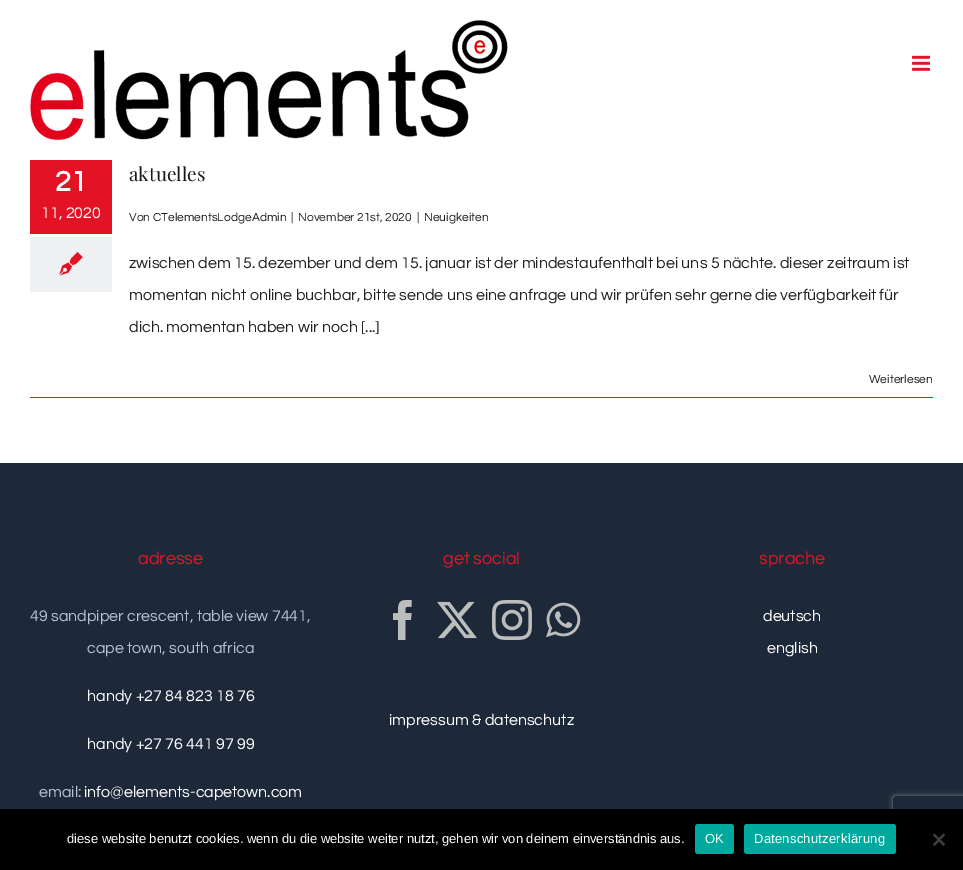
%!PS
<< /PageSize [963 870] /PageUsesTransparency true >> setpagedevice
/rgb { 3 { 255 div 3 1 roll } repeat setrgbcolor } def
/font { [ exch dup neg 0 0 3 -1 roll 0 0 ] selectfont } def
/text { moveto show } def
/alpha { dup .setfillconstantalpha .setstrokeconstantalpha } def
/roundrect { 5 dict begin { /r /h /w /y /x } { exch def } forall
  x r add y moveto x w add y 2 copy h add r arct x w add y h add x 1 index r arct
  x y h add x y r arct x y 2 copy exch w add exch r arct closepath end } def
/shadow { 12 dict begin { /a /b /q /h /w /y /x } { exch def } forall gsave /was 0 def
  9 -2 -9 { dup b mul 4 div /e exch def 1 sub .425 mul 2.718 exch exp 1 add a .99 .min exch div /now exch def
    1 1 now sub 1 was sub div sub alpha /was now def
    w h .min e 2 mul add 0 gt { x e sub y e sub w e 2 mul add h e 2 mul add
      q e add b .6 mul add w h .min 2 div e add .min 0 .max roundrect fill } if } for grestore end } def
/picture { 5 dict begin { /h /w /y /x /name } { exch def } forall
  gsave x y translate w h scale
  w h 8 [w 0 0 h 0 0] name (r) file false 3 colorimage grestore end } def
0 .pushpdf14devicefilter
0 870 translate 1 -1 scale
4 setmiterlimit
255 255 255 rgb
0 0 963 870 rectfill
(img_01.rgb) 30 20 478 120 picture
(img_02.rgb) 912 55 18 16 picture
227 19 37 rgb
30 160 82 74 rectfill
238 240 242 rgb
30 237 82 55 rectfill
(img_03.rgb) 59 252 24 24 picture
227 19 37 rgb
30 397 903 1 rectfill
29 41 57 rgb
0 463 963 346 rectfill
(img_04.rgb) 393 600 19 40 picture
(img_05.rgb) 437 601 40 38 picture
(img_06.rgb) 492 600 40 40 picture
(img_07.rgb) 546 602 35 36 picture
gsave
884 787 moveto 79 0 rlineto 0 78 rlineto -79 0 rlineto closepath 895 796 moveto 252 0 rlineto 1 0 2 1 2 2 rcurveto 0 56 rlineto 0 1 -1 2 -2 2 rcurveto -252 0 rlineto -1 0 -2 -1 -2 -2 rcurveto 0 -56 rlineto 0 -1 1 -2 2 -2 rcurveto closepath eoclip newpath
128 128 128 rgb
893 796 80 60 2 2.5 1 shadow
grestore
0 0 0 rgb
0 809 963 61 rectfill
0 169 157 rgb
695 824 39 30 3 roundrect fill
744 824 152 30 3 roundrect fill
64 64 64 rgb
943.5 833.5 moveto 1.5 1.5 rlineto -10.5 11 rlineto -1.5 -1.5 rlineto closepath fill
933 835 moveto 1.5 -1.5 rlineto 10.5 11 rlineto -1.5 1.5 rlineto closepath fill
/Questrial-Bold 29 font
255 255 255 rgb
(21) 55 191 text
/Questrial-Regular 16 font
(11, 2020) 41 218 text
/PlayfairDisplay-Regular 19 font
23 23 23 rgb
(aktuelles) 129 181 text
/Questrial-Regular 12 font
34 34 34 rgb
(Von) 129 221 text
23 23 23 rgb
(CTelementsLodgeAdmin) 153 221 text
34 34 34 rgb
(|) 291 221 text
(November 21st, 2020) 298 221 text
(|) 417 221 text
23 23 23 rgb
(Neuigkeiten) 424 221 text
/Questrial-Regular 16 font
34 34 34 rgb
(zwischen dem 15. dezember und dem 15. januar ist der mindestaufenthalt bei uns 5 nächte. dieser zeitraum ist) 129 268 text
(momentan nicht online buchbar, bitte sende uns eine anfrage und wir prüfen sehr gerne die verfügbarkeit für) 129 300 text
(dich. momentan haben wir noch [...]) 129 332 text
/Questrial-Regular 12 font
23 23 23 rgb
(Weiterlesen) 869 383 text
/Questrial-Regular 18 font
227 19 37 rgb
(adresse) 138 564 text
/Questrial-Regular 16 font
182 192 206 rgb
(49 sandpiper crescent, table view 7441,) 30 621 text
(cape town, south africa) 87 653 text
255 255 255 rgb
(handy +27 84 823 18 76) 87 701 text
(handy +27 76 441 97 99) 87 749 text
182 192 206 rgb
(email:) 39 797 text
255 255 255 rgb
(info@elements-capetown.com) 84 797 text
/Questrial-Regular 18 font
227 19 37 rgb
(get social) 443 564 text
/Questrial-Regular 16 font
255 255 255 rgb
(impressum & datenschutz) 389 725 text
/Questrial-Regular 18 font
227 19 37 rgb
(sprache) 759 564 text
/Questrial-Regular 16 font
255 255 255 rgb
(deutsch) 763 621 text
(english) 767 653 text
/LiberationSans-Regular 13 font
(diese website benutzt cookies. wenn du die website weiter nutzt, gehen wir von deinem einverständnis aus.) 67 843 text
705 843 moveto 0.25 0 (OK) ashow
754 843 moveto 0.25 0 (Datenschutzerklärung) ashow
.poppdf14devicefilter showpage
